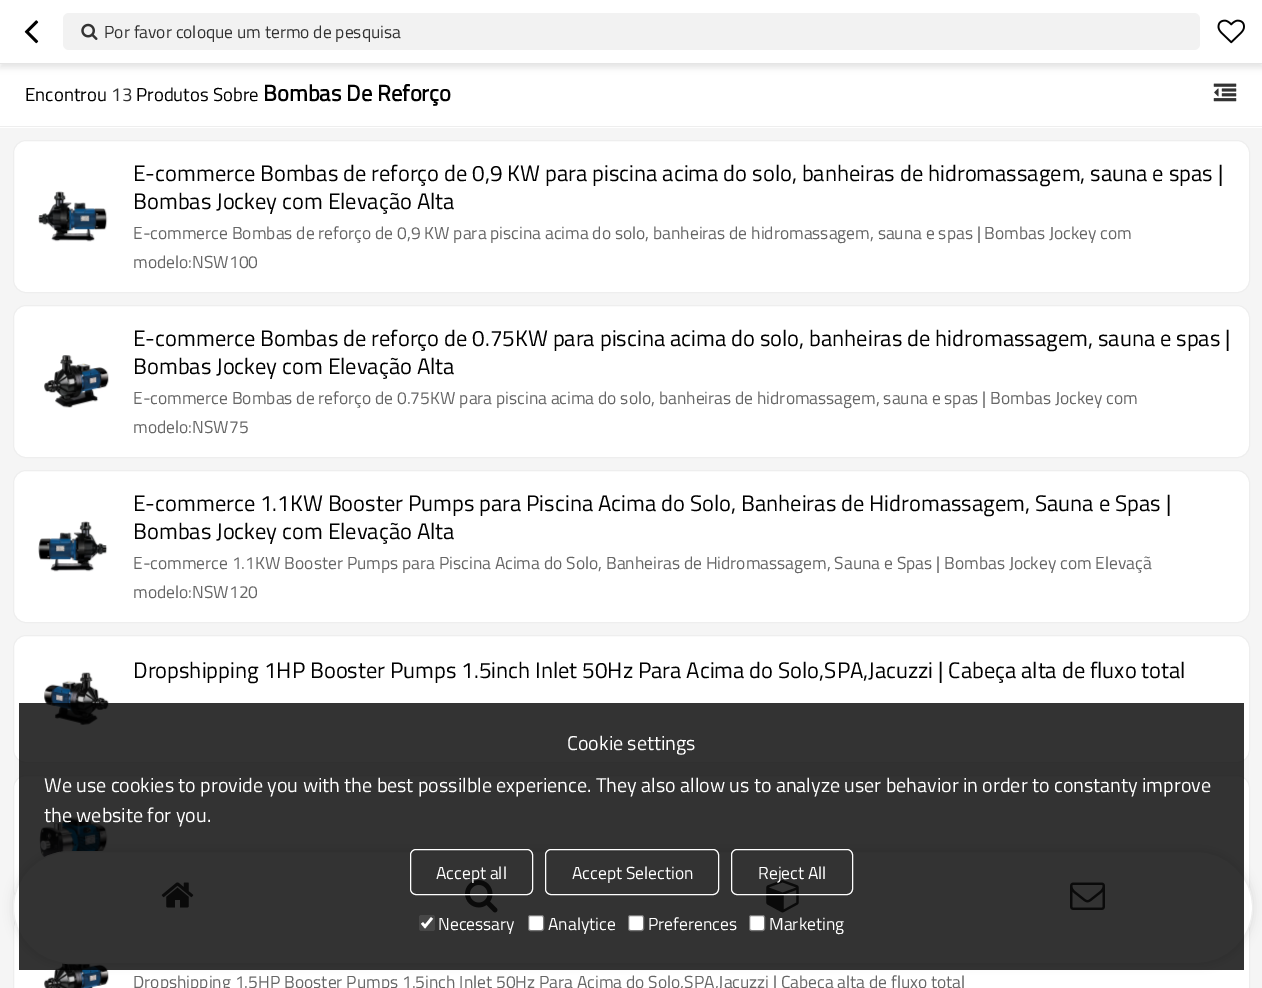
%!PS
<< /PageSize [1262 988] /PageUsesTransparency true >> setpagedevice
/rgb { 3 { 255 div 3 1 roll } repeat setrgbcolor } def
/font { [ exch dup neg 0 0 3 -1 roll 0 0 ] selectfont } def
/text { moveto show } def
/alpha { dup .setfillconstantalpha .setstrokeconstantalpha } def
/roundrect { 5 dict begin { /r /h /w /y /x } { exch def } forall
  x r add y moveto x w add y 2 copy h add r arct x w add y h add x 1 index r arct
  x y h add x y r arct x y 2 copy exch w add exch r arct closepath end } def
/shadow { 12 dict begin { /a /b /q /h /w /y /x } { exch def } forall gsave /was 0 def
  9 -2 -9 { dup b mul 4 div /e exch def 1 sub .425 mul 2.718 exch exp 1 add a .99 .min exch div /now exch def
    1 1 now sub 1 was sub div sub alpha /was now def
    w h .min e 2 mul add 0 gt { x e sub y e sub w e 2 mul add h e 2 mul add
      q e add b .6 mul add w h .min 2 div e add .min 0 .max roundrect fill } if } for grestore end } def
/picture { 5 dict begin { /h /w /y /x /name } { exch def } forall
  gsave x y translate w h scale
  w h 8 [w 0 0 h 0 0] name (r) file false 3 colorimage grestore end } def
0 .pushpdf14devicefilter
0 988 translate 1 -1 scale
4 setmiterlimit
245 245 245 rgb
0 0 1262 988 rectfill
255 255 255 rgb
0 64 1262 64 rectfill
0 0 0 rgb
0 4 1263 64 0 3 0.1 shadow
255 255 255 rgb
0 0 1262 63 rectfill
229 229 229 rgb
0 63 1262 1 rectfill
(img_01.rgb) 24 20 15 24 picture
242 242 242 rgb
63 13 1137 37 6 roundrect fill
(img_02.rgb) 81 23 17 17 picture
(img_03.rgb) 1217 19 28 25 picture
238 238 238 rgb
0 126 1262 1 rectfill
(img_04.rgb) 1213 83 24 19 picture
255 255 255 rgb
13.5 140.5 1236 152 12.5 roundrect gsave fill grestore
238 238 238 rgb
stroke
(img_05.rgb) 38 191 70 51 picture
255 255 255 rgb
13.5 305.5 1236 152 12.5 roundrect gsave fill grestore
238 238 238 rgb
stroke
(img_06.rgb) 44 355 65 53 picture
255 255 255 rgb
13.5 470.5 1236 152 12.5 roundrect gsave fill grestore
238 238 238 rgb
stroke
(img_07.rgb) 38 521 70 51 picture
255 255 255 rgb
13.5 635.5 1236 127 12.5 roundrect gsave fill grestore
238 238 238 rgb
stroke
(img_08.rgb) 44 672 65 53 picture
255 255 255 rgb
13.5 775.5 1236 127 12.5 roundrect gsave fill grestore
238 238 238 rgb
stroke
(img_09.rgb) 39 816 69 44 picture
255 255 255 rgb
13.5 915.5 1236 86 12.5 roundrect gsave fill grestore
238 238 238 rgb
stroke
(img_10.rgb) 44 957 65 31 picture
0 0 0 rgb
13 851 1240 113 56.5 5 0.1 shadow
255 255 255 rgb
13.5 851.5 1239 112 56 roundrect gsave fill grestore
238 238 238 rgb
stroke
(img_11.rgb) 161 882 33 26 picture
(img_12.rgb) 465 880 33 33 picture
(img_13.rgb) 766 880 33 33 picture
(img_14.rgb) 1070 882 35 28 picture
0.8 alpha
0 0 0 rgb
19 703 1225 267 rectfill
1 alpha
255 255 255 rgb
410.5 849.5 122 45 5.5 roundrect stroke
545.5 849.5 173 45 5.5 roundrect stroke
731.5 849.5 121 45 5.5 roundrect stroke
71 71 71 rgb
419 915 16 16 2.5 roundrect fill
255 255 255 rgb
2.6 setlinewidth
422 923 moveto 3 3.5 rlineto 7 -8.5 rlineto stroke
528.5 915.5 15 15 2 roundrect gsave fill grestore
118 118 118 rgb
1 setlinewidth
stroke
255 255 255 rgb
628.5 915.5 15 15 2 roundrect gsave fill grestore
118 118 118 rgb
stroke
255 255 255 rgb
749.5 915.5 15 15 2 roundrect gsave fill grestore
118 118 118 rgb
stroke
/TitilliumWeb-Regular 17.5 font
51 51 51 rgb
(Por favor coloque um termo de pesquisa) 104 38 text
/TitilliumWeb-Regular 18.75 font
0 0 0 rgb
(Encontrou) 25 101 text
51 51 51 rgb
(13) 111 101 text
0 0 0 rgb
(Produtos Sobre) 136 101 text
/TitilliumWeb-Bold 22.5 font
(Bombas De Reforço) 263 101 text
/TitilliumWeb-Regular 22.5 font
(E-commerce Bombas de reforço de 0,9 KW para piscina acima do solo, banheiras de hidromassagem, sauna e spas |) 133 181 text
(Bombas Jockey com Elevação Alta) 133 209 text
/TitilliumWeb-Regular 17.5 font
102 102 102 rgb
(E-commerce Bombas de reforço de 0,9 KW para piscina acima do solo, banheiras de hidromassagem, sauna e spas | Bombas Jockey com) 133 239 text
(modelo:NSW100) 133 268 text
/TitilliumWeb-Regular 22.5 font
0 0 0 rgb
(E-commerce Bombas de reforço de 0.75KW para piscina acima do solo, banheiras de hidromassagem, sauna e spas |) 133 346 text
(Bombas Jockey com Elevação Alta) 133 374 text
/TitilliumWeb-Regular 17.5 font
102 102 102 rgb
(E-commerce Bombas de reforço de 0.75KW para piscina acima do solo, banheiras de hidromassagem, sauna e spas | Bombas Jockey com) 133 404 text
(modelo:NSW75) 133 433 text
/TitilliumWeb-Regular 22.5 font
0 0 0 rgb
(E-commerce 1.1KW Booster Pumps para Piscina Acima do Solo, Banheiras de Hidromassagem, Sauna e Spas |) 133 511 text
(Bombas Jockey com Elevação Alta) 133 539 text
/TitilliumWeb-Regular 17.5 font
102 102 102 rgb
(E-commerce 1.1KW Booster Pumps para Piscina Acima do Solo, Banheiras de Hidromassagem, Sauna e Spas | Bombas Jockey com Elevaçã) 133 569 text
(modelo:NSW120) 133 598 text
/TitilliumWeb-Regular 22.5 font
0 0 0 rgb
(Dropshipping 1HP Booster Pumps 1.5inch Inlet 50Hz Para Acima do Solo,SPA,Jacuzzi | Cabeça alta de fluxo total) 133 678 text
/TitilliumWeb-Regular 17.5 font
102 102 102 rgb
(Dropshipping 1.5HP Booster Pumps 1.5inch Inlet 50Hz Para Acima do Solo,SPA,Jacuzzi | Cabeça alta de fluxo total) 133 988 text
/TitilliumWeb-Regular 20 font
255 255 255 rgb
(Cookie settings) 567 750 text
(We use cookies to provide you with the best possilble experience. They also allow us to analyze user behavior in order to constanty improve) 44 792 text
(the website for you.) 44 822 text
/TitilliumWeb-Regular 17.5 font
(Accept all) 436 879 text
(Accept Selection) 572 879 text
(Reject All) 758 879 text
(Necessary) 438 930 text
(Analytice) 548 930 text
(Preferences) 648 930 text
(Marketing) 769 930 text
.poppdf14devicefilter showpage
